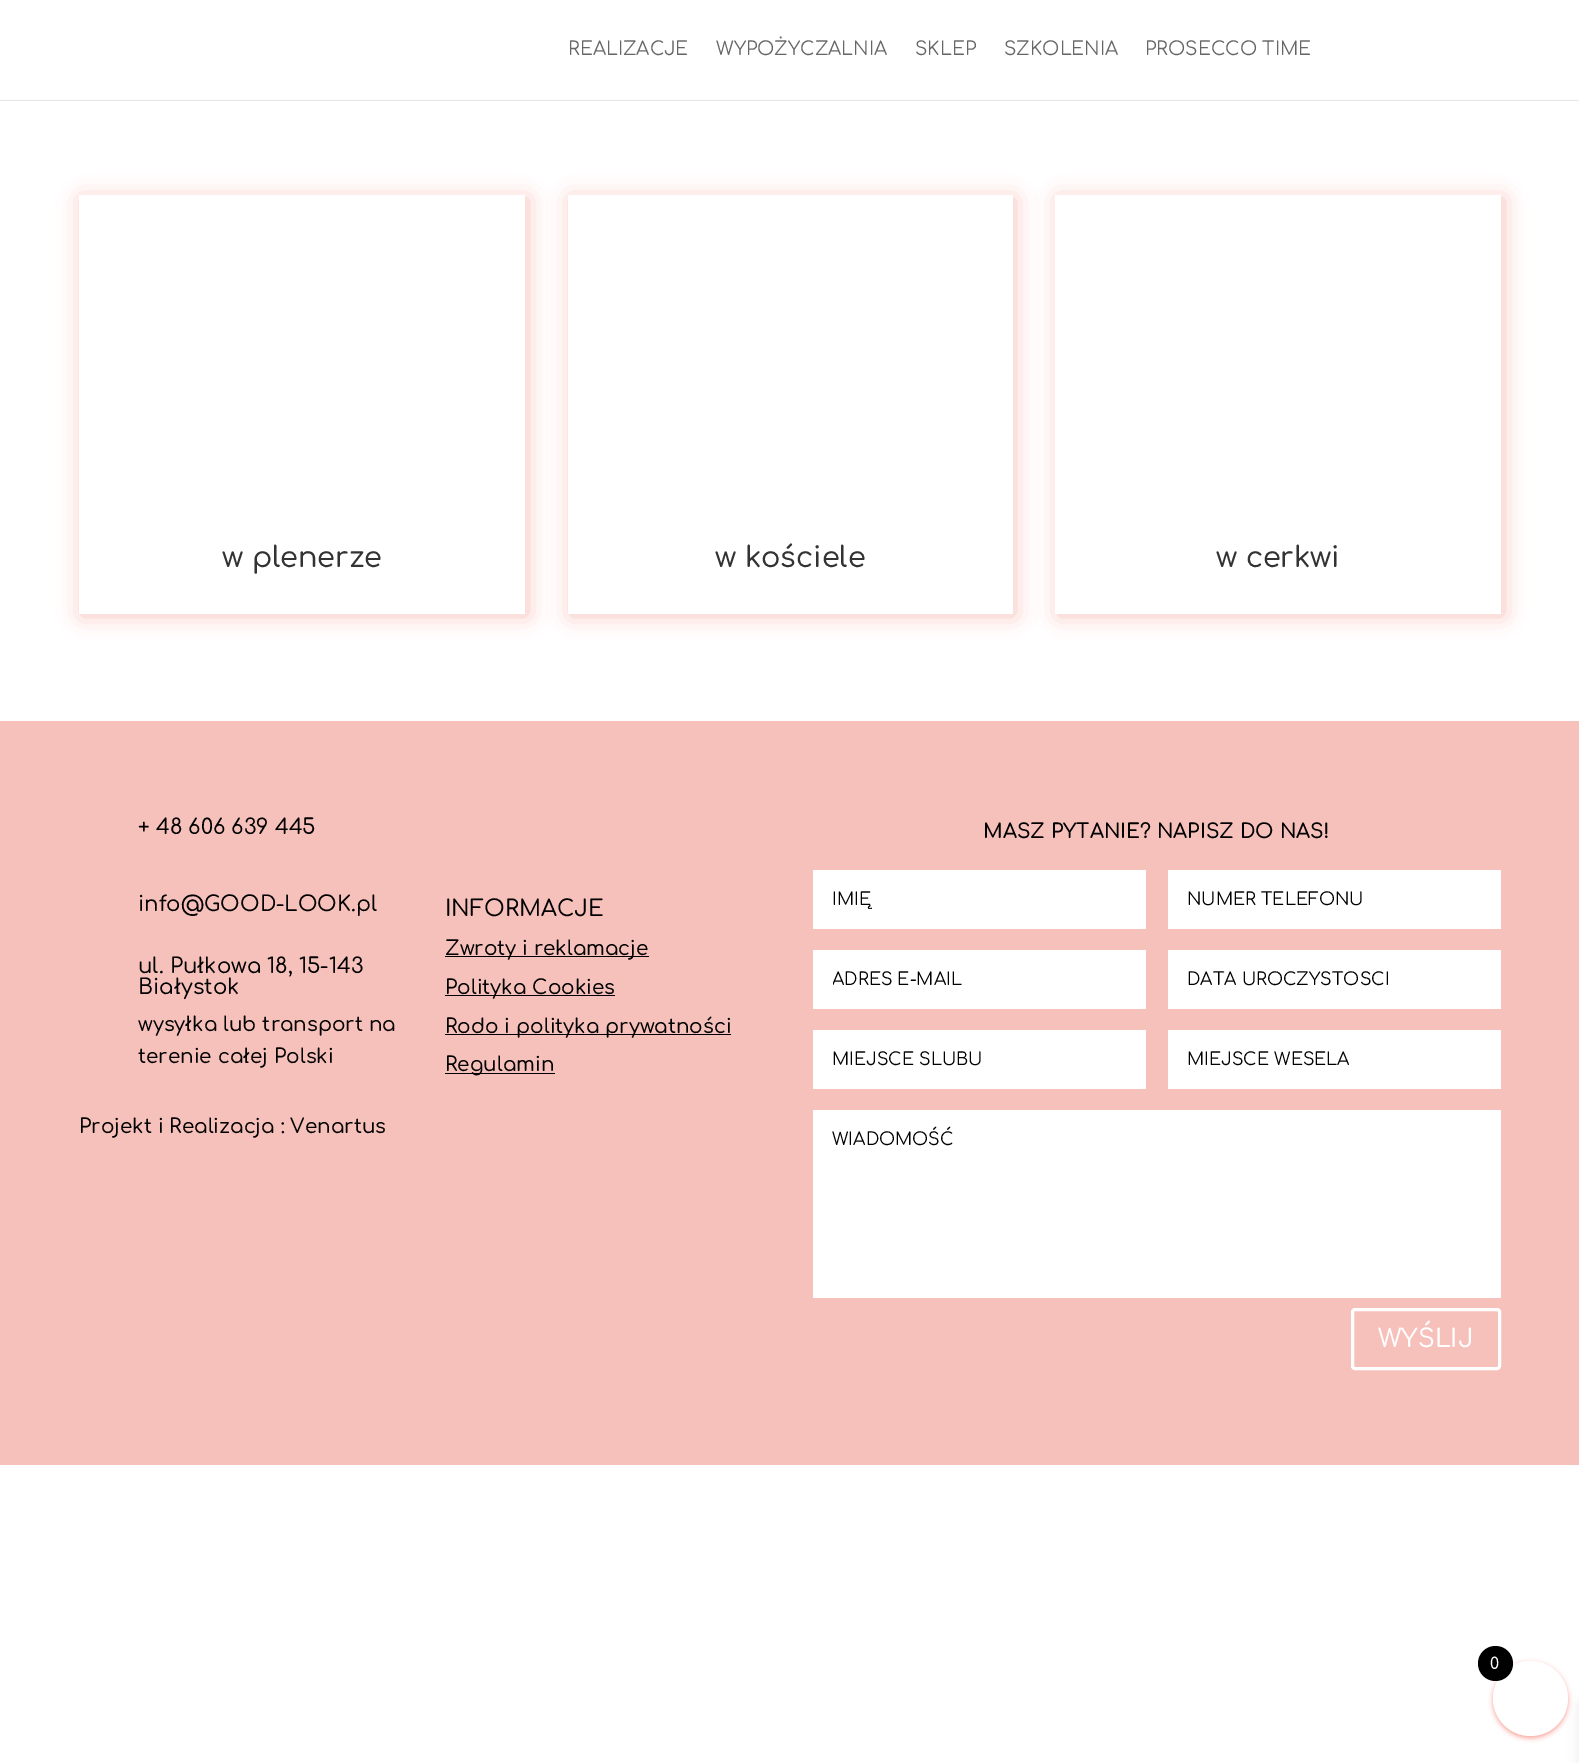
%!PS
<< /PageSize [1579 1763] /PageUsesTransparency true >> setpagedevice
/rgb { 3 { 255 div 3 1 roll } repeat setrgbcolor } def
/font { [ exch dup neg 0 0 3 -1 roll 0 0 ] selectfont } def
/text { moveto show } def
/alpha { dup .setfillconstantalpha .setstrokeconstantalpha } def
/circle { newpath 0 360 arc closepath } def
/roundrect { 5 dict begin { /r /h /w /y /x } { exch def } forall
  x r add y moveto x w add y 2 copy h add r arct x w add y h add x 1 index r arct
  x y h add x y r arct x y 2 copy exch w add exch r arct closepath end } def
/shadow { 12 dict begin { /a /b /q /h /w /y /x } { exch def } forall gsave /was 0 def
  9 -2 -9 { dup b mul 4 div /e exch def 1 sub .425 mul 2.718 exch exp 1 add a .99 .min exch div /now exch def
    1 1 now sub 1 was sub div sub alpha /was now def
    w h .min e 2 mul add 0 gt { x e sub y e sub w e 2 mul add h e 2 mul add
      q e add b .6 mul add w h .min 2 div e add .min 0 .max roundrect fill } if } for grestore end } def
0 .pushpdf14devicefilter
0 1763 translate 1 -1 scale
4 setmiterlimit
255 255 255 rgb
0 0 1579 1763 rectfill
230 230 230 rgb
0 100 1579 1 rectfill
gsave
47 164 moveto 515 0 rlineto 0 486 rlineto -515 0 rlineto closepath 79 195 moveto 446 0 rlineto 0 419 rlineto -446 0 rlineto closepath eoclip newpath
247 193 187 rgb
81 198 447 418 0 11 1 shadow
grestore
gsave
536 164 moveto 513 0 rlineto 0 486 rlineto -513 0 rlineto closepath 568 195 moveto 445 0 rlineto 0 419 rlineto -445 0 rlineto closepath eoclip newpath
247 193 187 rgb
570 198 445 418 0 11 1 shadow
grestore
gsave
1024 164 moveto 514 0 rlineto 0 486 rlineto -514 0 rlineto closepath 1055 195 moveto 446 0 rlineto 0 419 rlineto -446 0 rlineto closepath eoclip newpath
247 193 187 rgb
1058 198 446 418 0 11 1 shadow
grestore
247 193 187 rgb
0 721 1579 744 rectfill
0 0 0 rgb
445 956 204 1 rectfill
445 995 170 1 rectfill
445 1034 286 1 rectfill
445 1073 110 1 rectfill
255 255 255 rgb
813 870 333 59 rectfill
1168 870 333 59 rectfill
813 950 333 59 rectfill
1168 950 333 59 rectfill
813 1030 333 59 rectfill
1168 1030 333 59 rectfill
813 1110 688 188 rectfill
3 setlinewidth
1352.5 1309.5 147 59 2.5 roundrect stroke
247 162 153 rgb
1493 1663 75 75 37.5 2.5 1 shadow
0 0 0 rgb
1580 1705 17 58 0 6 0.1 shadow
255 255 255 rgb
1530.5 1698.5 37.5 circle fill
0 0 0 rgb
1495.5 1663.5 17.5 circle fill
/Comfortaa-Regular 18.75 font
102 102 102 rgb
(REALIZACJE) 568 55 text
(WYPOŻYCZALNIA) 716 55 text
(SKLEP) 915 55 text
(SZKOLENIA) 1004 55 text
(PROSECCO TIME) 1145 55 text
/Comfortaa-Medium 28.75 font
51 51 51 rgb
(w plenerze) 222 567 text
(w kościele) 715 567 text
(w cerkwi) 1216 567 text
/Comfortaa-Medium 21.25 font
0 0 0 rgb
(+ 48 606 639 445) 138 834 text
(info@GOOD-LOOK.pl) 138 911 text
(ul. Pułkowa 18, 15-143) 138 973 text
(Białystok) 138 994 text
/Comfortaa-Medium 20 font
(wysyłka lub transport na) 138 1031 text
(terenie całej Polski) 138 1063 text
(Projekt i Realizacja : Venartus) 79 1133 text
/Comfortaa-Medium 22.5 font
(INFORMACJE) 445 916 text
/Comfortaa-Medium 20 font
(Zwroty i reklamacje) 445 955 text
(Polityka Cookies) 445 994 text
(Rodo i polityka prywatności) 445 1033 text
(Regulamin) 445 1071 text
/Comfortaa-SemiBold 20 font
(MASZ PYTANIE? NAPISZ DO NAS!) 983 838 text
gsave
833 890 293 19 rectclip
/Comfortaa-Regular 17.5 font
(IMIĘ) 832 905 text
grestore
/Comfortaa-Regular 17.5 font
(NUMER TELEFONU) 1187 905 text
gsave
833 970 293 19 rectclip
(ADRES E-MAIL) 832 985 text
grestore
gsave
1188 970 293 19 rectclip
(DATA UROCZYSTOŚCI) 1187 985 text
grestore
gsave
833 1050 293 19 rectclip
(MIEJSCE ŚLUBU) 832 1065 text
grestore
(MIEJSCE WESELA) 1187 1065 text
(WIADOMOŚĆ) 832 1145 text
/Comfortaa-Medium 25 font
255 255 255 rgb
(WYŚLIJ) 1378 1347 text
/Comfortaa-Medium 16 font
(0) 1490 1669 text
.poppdf14devicefilter showpage
